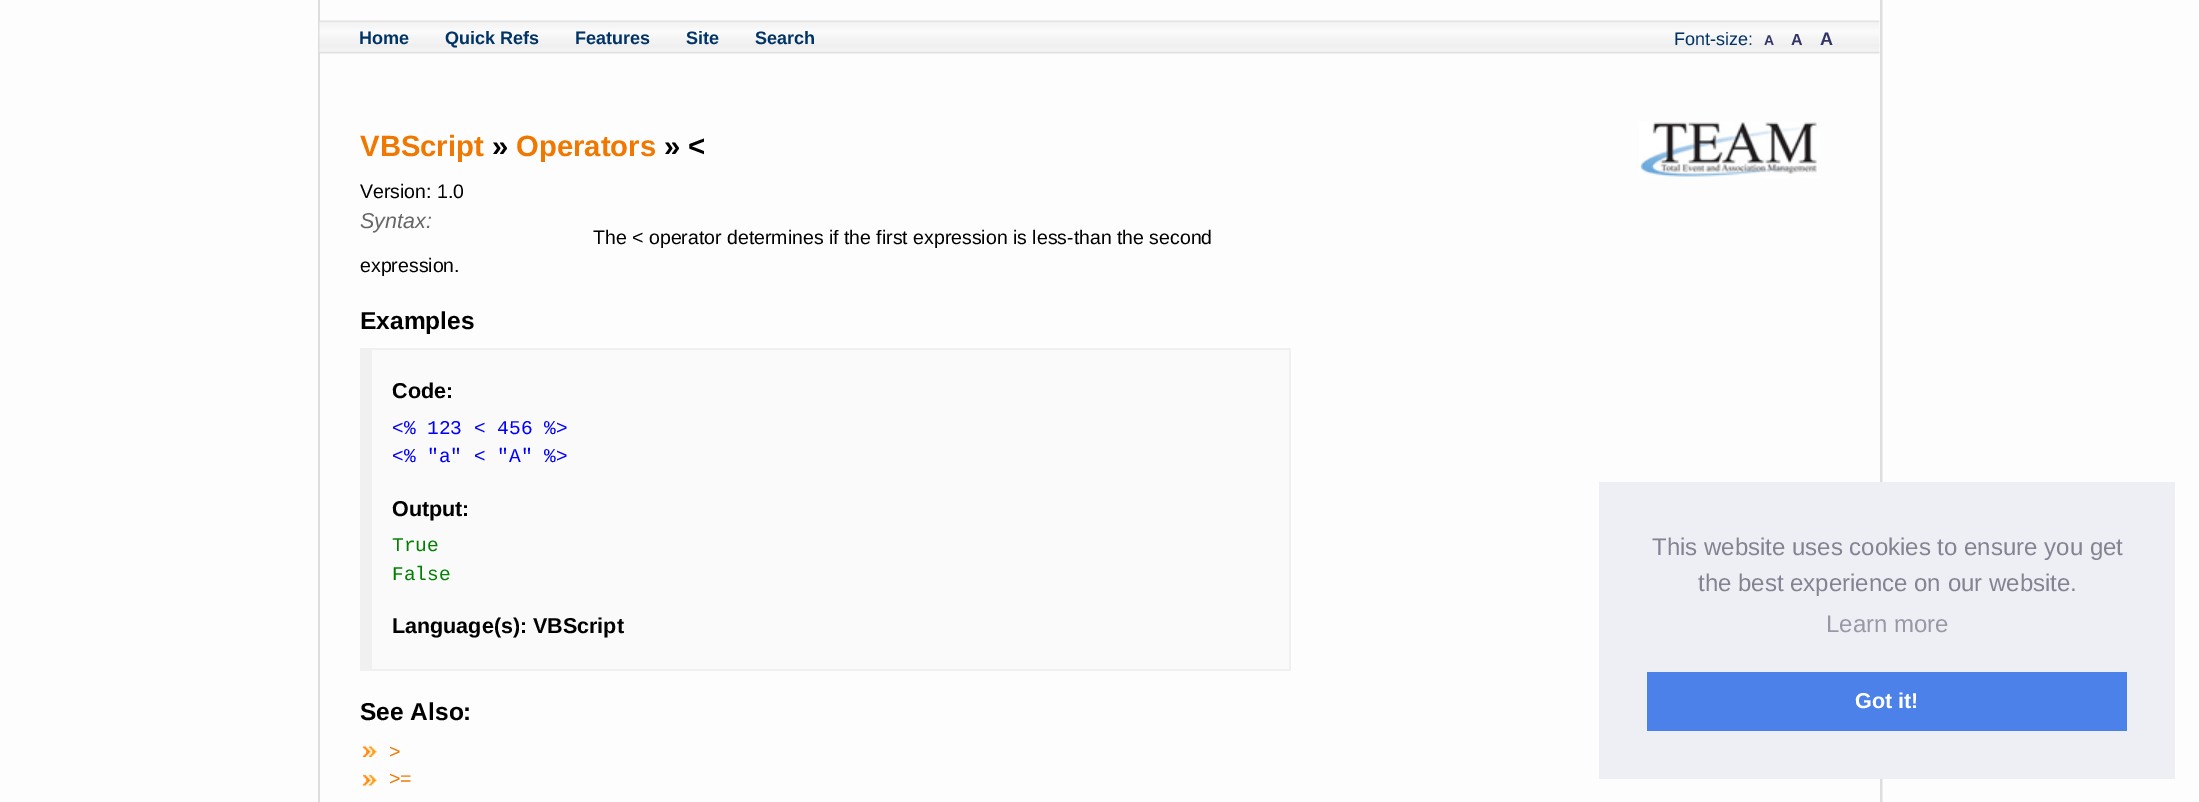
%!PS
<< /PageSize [2199 802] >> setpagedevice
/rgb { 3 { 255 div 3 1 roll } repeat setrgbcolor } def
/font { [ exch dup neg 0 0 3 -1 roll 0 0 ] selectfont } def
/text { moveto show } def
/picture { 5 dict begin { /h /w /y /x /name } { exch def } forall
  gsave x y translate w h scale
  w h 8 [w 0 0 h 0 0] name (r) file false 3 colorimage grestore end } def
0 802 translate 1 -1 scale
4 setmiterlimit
253 253 253 rgb
0 0 2199 802 rectfill
(img_01.rgb) 1882 0 1 802 picture
221 221 221 rgb
1880 0 2 802 rectfill
318 0 2 802 rectfill
(img_02.rgb) 319 20 1561 34 picture
250 250 250 rgb
372 350 917 319 rectfill
240 240 240 rgb
372 348 918 2 rectfill
1289 348 2 323 rectfill
372 669 918 2 rectfill
360 348 12 323 rectfill
(img_03.rgb) 362 746 15 11 picture
(img_04.rgb) 362 774 15 12 picture
(img_05.rgb) 1639 122 181 56 picture
237 239 245 rgb
1599 482 576 297 rectfill
75 129 232 rgb
1647 672 480 59 rectfill
/LiberationSans-Bold 18 font
0 51 102 rgb
(Home) 359 44 text
(Quick Refs) 445 44 text
(Features) 575 44 text
(Site) 686 44 text
(Search) 755 44 text
/LiberationSans-Regular 18 font
(Font-size:) 1674 45 text
/LiberationSans-Bold 14 font
51 51 102 rgb
(A) 1764 45 text
/LiberationSans-Bold 16 font
(A) 1791 45 text
/LiberationSans-Bold 18 font
(A) 1820 45 text
/LiberationSans-Bold 29.25 font
240 120 0 rgb
(VBScript) 360 156 text
0 0 0 rgb
(») 492 156 text
240 120 0 rgb
(Operators) 516 156 text
0 0 0 rgb
(» <) 664 156 text
/LiberationSans-Regular 19.5 font
(Version: 1.0) 360 198 text
/LiberationSans-Italic 21.5 font
102 102 102 rgb
(Syntax:) 360 228 text
/LiberationSans-Regular 19.5 font
0 0 0 rgb
(The < operator determines if the first expression is less-than the second) 593 244 text
(expression.) 360 272 text
/LiberationSans-Bold 24.5 font
(Examples) 360 329 text
/LiberationSans-Bold 21.5 font
(Code:) 392 398 text
/LiberationMono-Regular 19.5 font
0 0 255 rgb
(<% 123 < 456 %>) 392 434 text
(<% "a" < "A" %>) 392 462 text
/LiberationSans-Bold 21.5 font
0 0 0 rgb
(Output:) 392 516 text
/LiberationMono-Regular 19.5 font
0 128 0 rgb
(True) 392 551 text
(False) 392 580 text
/LiberationSans-Bold 21.5 font
0 0 0 rgb
(Language\(s\): VBScript) 392 633 text
/LiberationSans-Bold 24.5 font
(See Also:) 360 720 text
/LiberationSans-Regular 19.5 font
240 120 0 rgb
(>) 389 758 text
(>=) 389 785 text
/LiberationSans-Regular 24 font
131 131 145 rgb
(This website uses cookies to ensure you get) 1652 555 text
(the best experience on our website.) 1698 591 text
152 153 165 rgb
(Learn more) 1826 632 text
/LiberationSans-Bold 21.5 font
255 255 255 rgb
(Got it!) 1855 708 text
showpage
